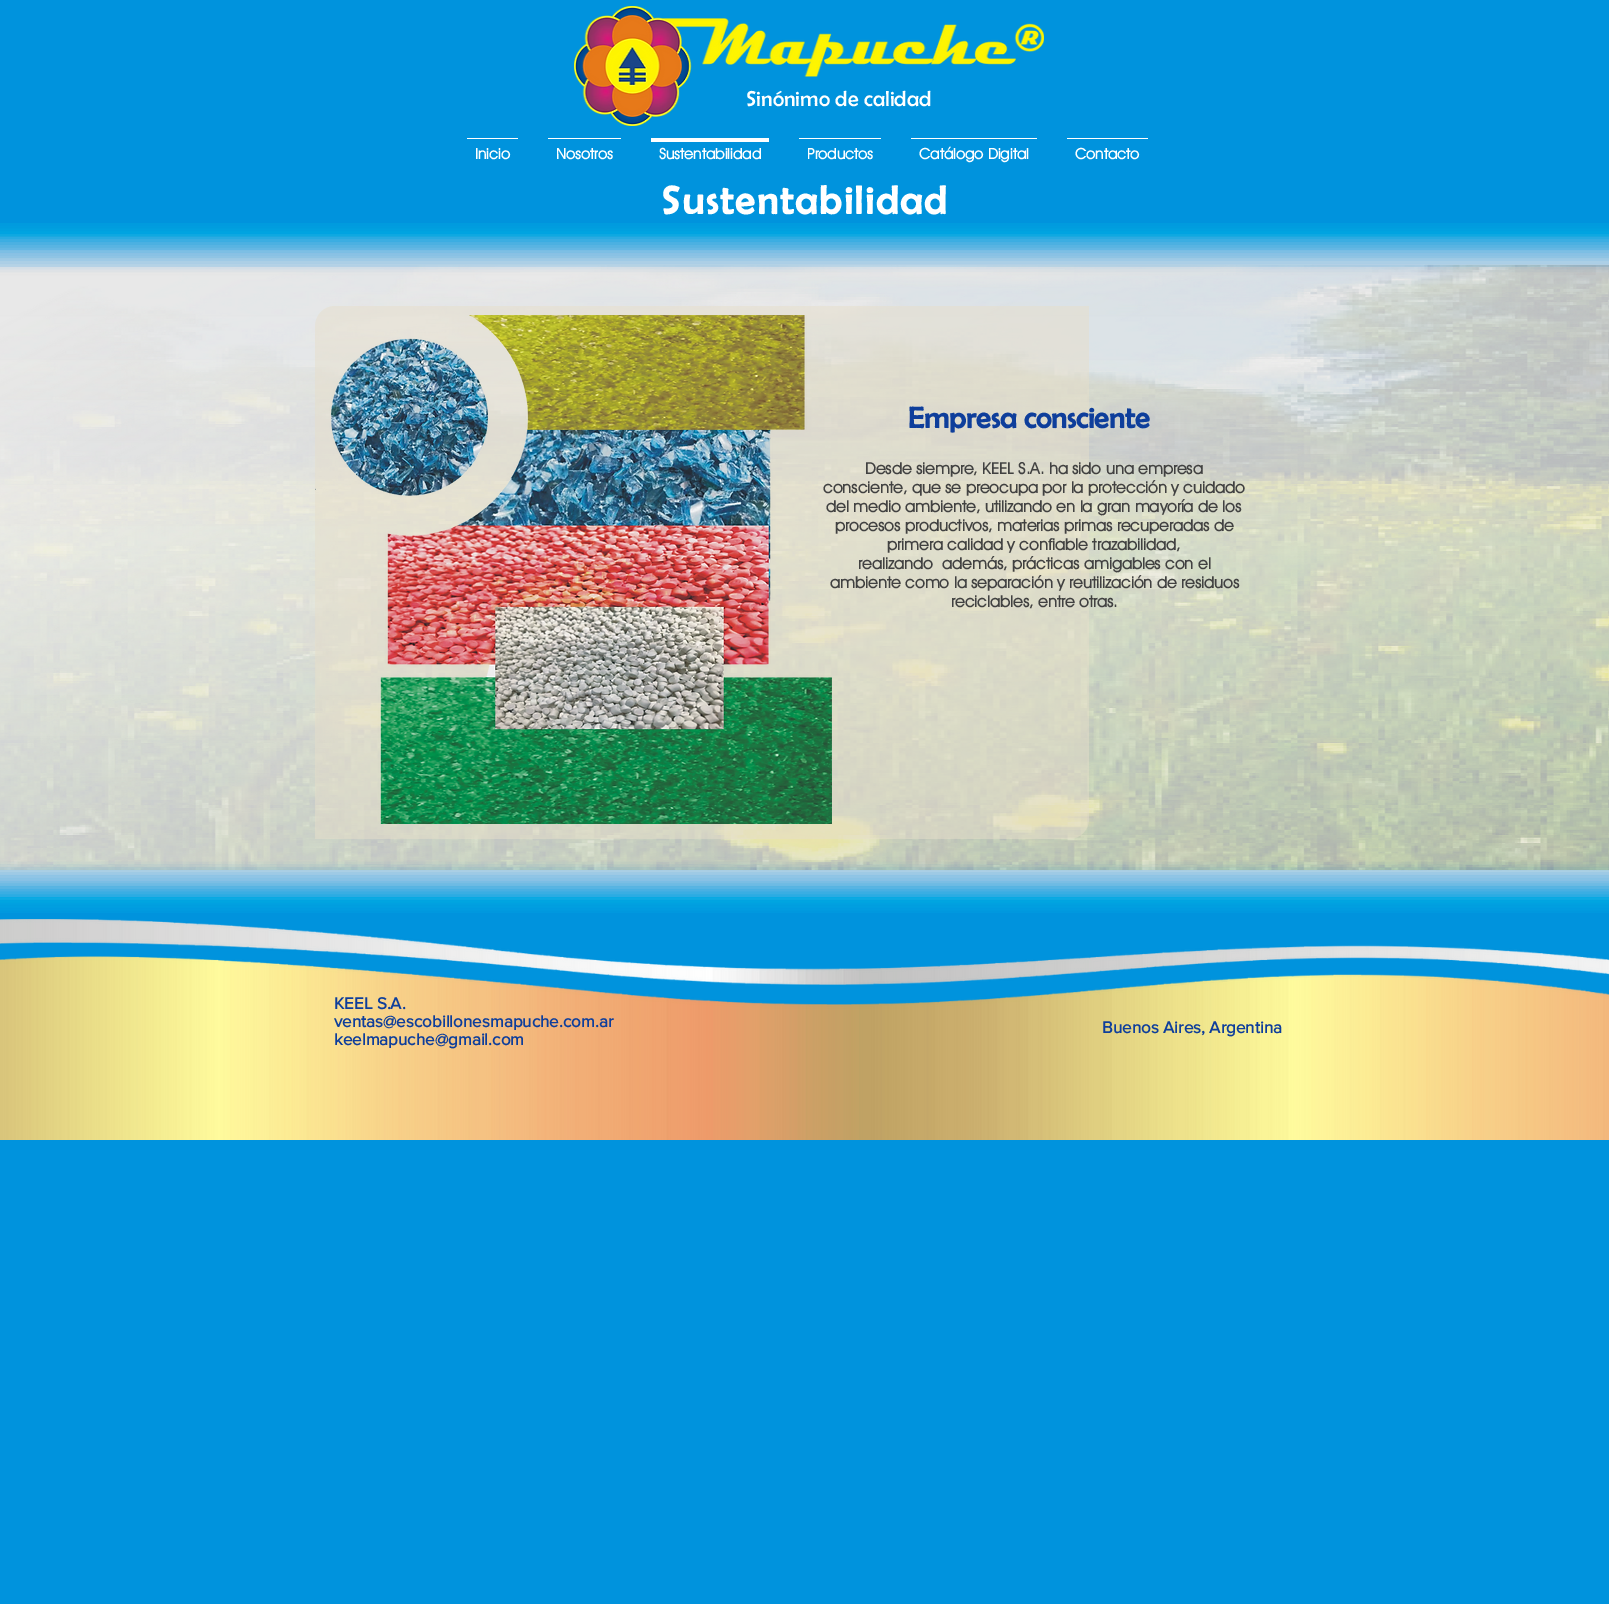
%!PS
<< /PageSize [1609 1604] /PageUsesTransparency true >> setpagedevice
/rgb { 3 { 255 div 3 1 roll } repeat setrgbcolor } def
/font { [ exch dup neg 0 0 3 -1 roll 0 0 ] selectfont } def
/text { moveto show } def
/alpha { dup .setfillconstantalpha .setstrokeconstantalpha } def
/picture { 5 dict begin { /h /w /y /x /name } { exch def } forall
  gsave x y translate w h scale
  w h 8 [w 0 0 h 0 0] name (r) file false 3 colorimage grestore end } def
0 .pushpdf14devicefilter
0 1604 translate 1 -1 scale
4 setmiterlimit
0 147 221 rgb
0 0 1609 1604 rectfill
(img_01.rgb) 574 6 470 120 picture
255 255 255 rgb
467 138 51 1 rectfill
548 138 73 1 rectfill
651 138 118 4 rectfill
799 138 82 1 rectfill
911 138 126 1 rectfill
1067 138 81 1 rectfill
(img_02.rgb) 0 223 1609 690 picture
0.5 alpha
230 222 202 rgb
335 306 moveto 754 0 rlineto 0 513 rlineto 0 11 -9 20 -20 20 rcurveto -754 0 rlineto 0 -513 rlineto 0 -11 9 -20 20 -20 rcurveto closepath fill
1 alpha
(img_03.rgb) 315 315 517 509 picture
(img_04.rgb) 0 919 1609 221 picture
/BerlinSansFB-Regular 22 font
255 255 255 rgb
(Sinónimo de calidad) 746 106 text
/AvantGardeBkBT-Bold 15 font
(Inicio) 475 159 text
(Nosotros) 556 159 text
(Sustentabilidad) 659 159 text
(Productos) 807 159 text
(Catálogo Digital) 919 159 text
(Contacto) 1075 159 text
/BerlinSansFB-Bold 40 font
661 214 moveto 2 0 (Sustentabilidad) ashow
/BerlinSansFB-Bold 30 font
14 62 155 rgb
(Empresa consciente) 908 428 text
/AvantGardeBkBT-Bold 16 font
65 65 65 rgb
(Desde siempre, KEEL S.A. ha sido una empresa) 865 474 text
(consciente, que se preocupa por la protección y cuidado) 823 493 text
(del medio ambiente, utilizando en la gran mayoría de los) 826 512 text
(procesos productivos, materias primas recuperadas de) 835 531 text
(primera calidad y confiable trazabilidad,) 887 550 text
(realizando) 858 569 text
(además, prácticas amigables con el) 942 569 text
(ambiente como la separación y reutilización de residuos) 830 588 text
(reciclables, entre otras.) 951 607 text
/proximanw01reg-Bold 17 font
14 62 155 rgb
(KEEL S.A.) 334 1009 text
(ventas@escobillonesmapuche.com.ar) 334 1027 text
(keelmapuche@gmail.com) 334 1045 text
(Buenos Aires, Argentina) 1102 1033 text
.poppdf14devicefilter showpage
